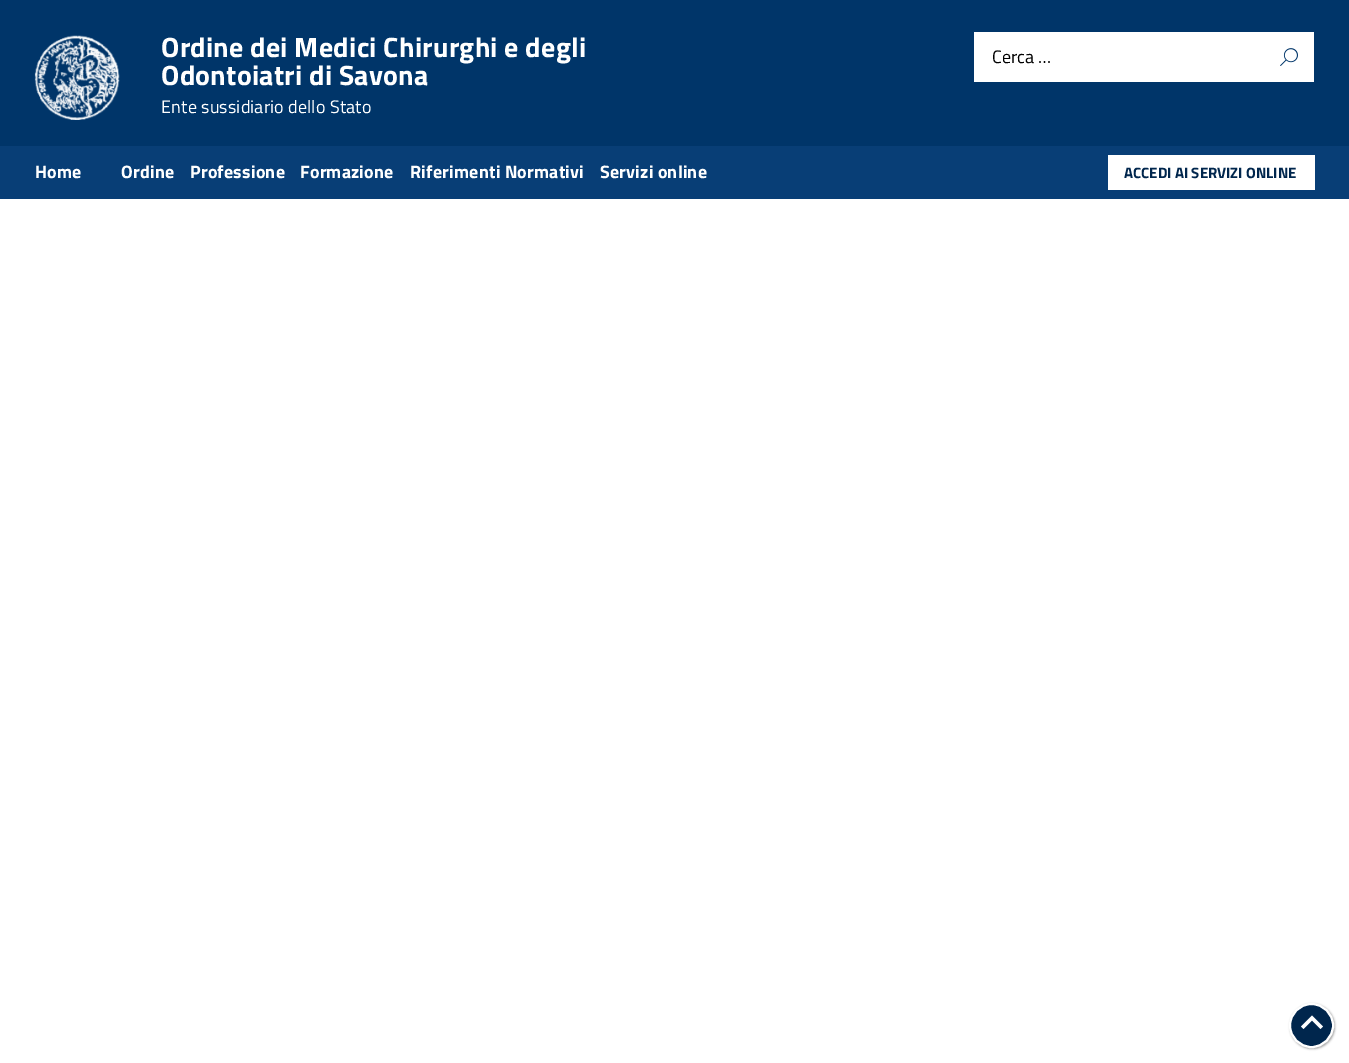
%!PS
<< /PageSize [1349 1063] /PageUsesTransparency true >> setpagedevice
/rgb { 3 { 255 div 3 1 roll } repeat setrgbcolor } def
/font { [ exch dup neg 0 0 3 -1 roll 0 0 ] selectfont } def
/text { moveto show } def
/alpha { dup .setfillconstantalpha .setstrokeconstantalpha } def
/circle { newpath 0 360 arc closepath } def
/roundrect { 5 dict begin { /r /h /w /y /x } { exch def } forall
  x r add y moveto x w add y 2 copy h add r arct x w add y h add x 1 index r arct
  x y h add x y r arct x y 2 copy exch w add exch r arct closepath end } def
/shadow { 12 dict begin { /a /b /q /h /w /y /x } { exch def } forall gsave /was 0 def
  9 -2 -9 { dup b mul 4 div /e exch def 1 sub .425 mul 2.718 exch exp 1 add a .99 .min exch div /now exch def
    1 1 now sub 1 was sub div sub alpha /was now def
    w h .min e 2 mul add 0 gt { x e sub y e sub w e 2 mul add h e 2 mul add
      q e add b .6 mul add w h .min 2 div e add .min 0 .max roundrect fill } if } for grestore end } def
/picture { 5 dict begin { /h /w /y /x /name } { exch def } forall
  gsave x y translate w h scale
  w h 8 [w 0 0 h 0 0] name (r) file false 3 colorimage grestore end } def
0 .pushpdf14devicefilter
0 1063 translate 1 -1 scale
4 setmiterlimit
255 255 255 rgb
0 0 1349 1063 rectfill
0 53 105 rgb
0 0 1349 146 rectfill
(img_01.rgb) 34 35 86 85 picture
255 255 255 rgb
974 32 340 50 rectfill
(img_02.rgb) 1280 48 18 18 picture
8 62 118 rgb
0 146 1349 53 rectfill
255 255 255 rgb
1108 155 207 35 rectfill
170 170 170 rgb
1290 1004 45 45 22.5 1 1 shadow
0 38 77 rgb
1311.5 1025.5 21.5 circle gsave fill grestore
255 255 255 rgb
2 setlinewidth
stroke
1320.5 1029 moveto 2.5 -2.5 rlineto -11 -11 rlineto -11 11 rlineto 2.5 2.5 rlineto 8.5 -8.5 rlineto closepath fill
/TitilliumWeb-Bold 28 font
161 57 moveto 0.3 0 (Ordine dei Medici Chirurghi e degli) ashow
161 85 moveto 0.3 0 (Odontoiatri di Savona) ashow
/TitilliumWeb-Regular 18 font
161 113 moveto 0.2 0 (Ente sussidiario dello Stato) ashow
0 0 0 rgb
(Cerca …) 992 63 text
/TitilliumWeb-Bold 18 font
255 255 255 rgb
35 178 moveto 0.2 0 (Home) ashow
121 178 moveto 0.2 0 (Ordine) ashow
190 178 moveto 0.2 0 (Professione) ashow
300 178 moveto 0.2 0 (Formazione) ashow
410 178 moveto 0.2 0 (Riferimenti Normativi) ashow
600 178 moveto 0.2 0 (Servizi online) ashow
/TitilliumWeb-Bold 15 font
0 38 77 rgb
(ACCEDI AI SERVIZI ONLINE) 1124 178 text
.poppdf14devicefilter showpage
